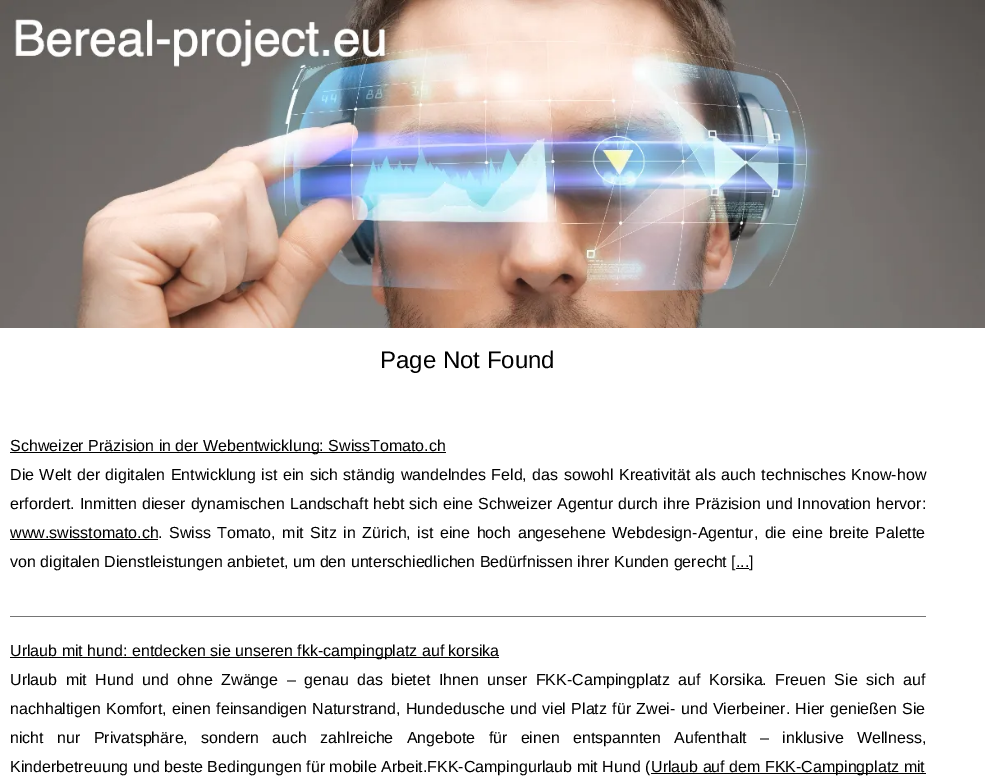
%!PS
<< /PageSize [985 777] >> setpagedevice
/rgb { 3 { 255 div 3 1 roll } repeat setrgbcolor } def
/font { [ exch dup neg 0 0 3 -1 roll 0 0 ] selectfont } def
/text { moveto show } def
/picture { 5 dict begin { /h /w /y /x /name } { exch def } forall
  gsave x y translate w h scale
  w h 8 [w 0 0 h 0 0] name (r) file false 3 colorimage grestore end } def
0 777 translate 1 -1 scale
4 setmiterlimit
255 255 255 rgb
0 0 985 777 rectfill
(img_01.rgb) 0 0 985 328 picture
0 0 0 rgb
10 452 436 1 rectfill
10 539 148 1 rectfill
736 568 13 1 rectfill
117 117 117 rgb
10 616 916 1 rectfill
0 0 0 rgb
10 657 489 1 rectfill
651 773 275 1 rectfill
/LiberationSans-Regular 24 font
(Page Not Found) 380 368 text
/LiberationSans-Regular 16 font
(Schweizer Präzision in der Webentwicklung: SwissTomato.ch) 10 451 text
10 480 moveto 1 0 32 (Die Welt der digitalen Entwicklung ist ein sich ständig wandelndes Feld, das sowohl Kreativität als auch technisches Know-how) widthshow
10 509 moveto 0.6 0 32 (erfordert. Inmitten dieser dynamischen Landschaft hebt sich eine Schweizer Agentur durch ihre Präzision und Innovation hervor:) widthshow
(www.swisstomato.ch) 10 538 text
158 538 moveto 2 0 32 (. Swiss Tomato, mit Sitz in Zürich, ist eine hoch angesehene Webdesign-Agentur, die eine breite Palette) widthshow
(von digitalen Dienstleistungen anbietet, um den unterschiedlichen Bedürfnissen ihrer Kunden gerecht [...]) 10 567 text
(Urlaub mit hund: entdecken sie unseren fkk-campingplatz auf korsika) 10 656 text
10 685 moveto 4 0 32 (Urlaub mit Hund und ohne Zwänge – genau das bietet Ihnen unser FKK-Campingplatz auf Korsika. Freuen Sie sich auf) widthshow
10 714 moveto 0.9 0 32 (nachhaltigen Komfort, einen feinsandigen Naturstrand, Hundedusche und viel Platz für Zwei- und Vierbeiner. Hier genießen Sie) widthshow
10 743 moveto 8.9 0 32 (nicht nur Privatsphäre, sondern auch zahlreiche Angebote für einen entspannten Aufenthalt – inklusive Wellness,) widthshow
(Kinderbetreuung und beste Bedingungen für mobile Arbeit.FKK-Campingurlaub mit Hund \() 10 772 text
(Urlaub auf dem FKK-Campingplatz mit) 651 772 text
showpage
